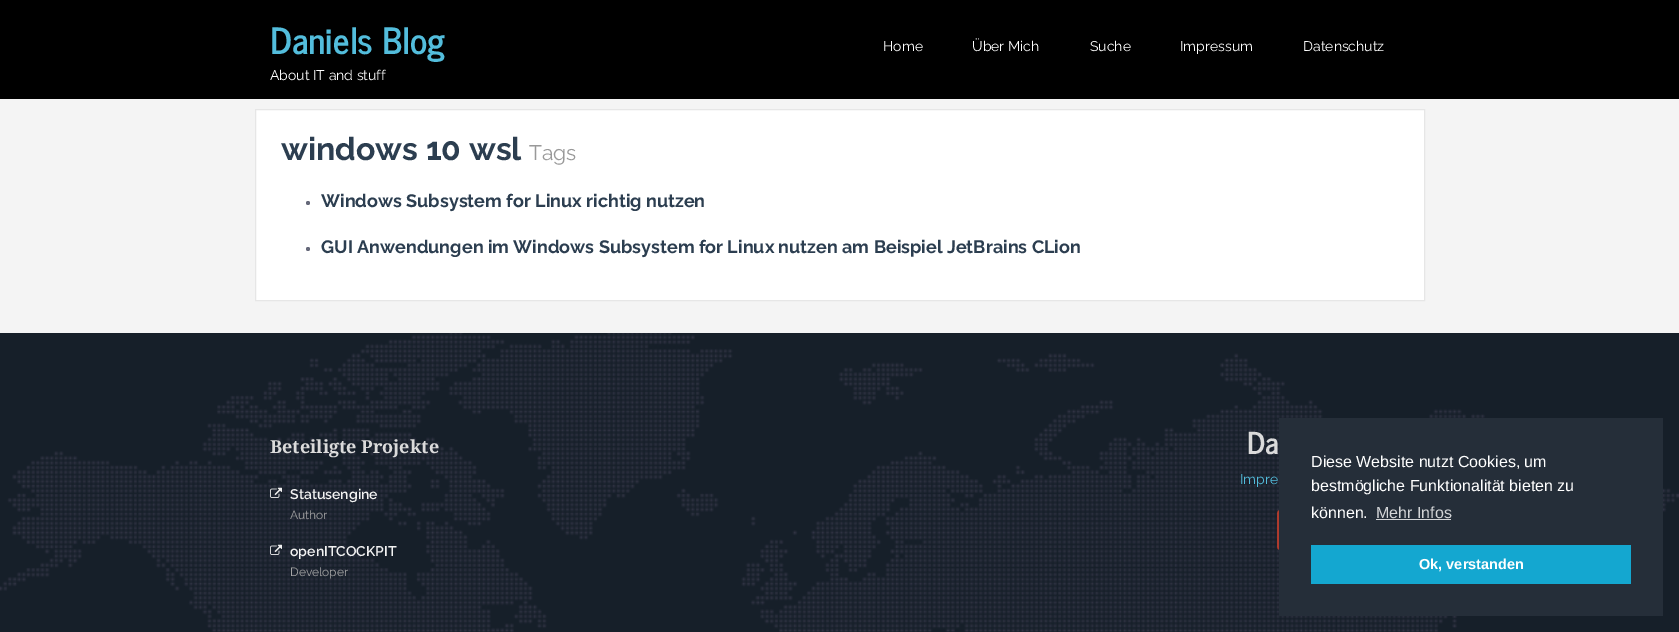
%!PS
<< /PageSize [1679 632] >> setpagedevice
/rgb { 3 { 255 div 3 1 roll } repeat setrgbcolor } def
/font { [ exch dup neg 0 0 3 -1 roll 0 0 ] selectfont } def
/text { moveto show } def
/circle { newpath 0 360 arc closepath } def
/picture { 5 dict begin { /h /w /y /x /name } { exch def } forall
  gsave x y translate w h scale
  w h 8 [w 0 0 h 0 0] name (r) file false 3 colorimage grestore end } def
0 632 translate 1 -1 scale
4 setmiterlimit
244 244 244 rgb
0 0 1679 632 rectfill
0 0 0 rgb
0 0 1679 99 rectfill
255 255 255 rgb
255.5 109.5 moveto 1169 0 rlineto 0 191 rlineto -1169 0 rlineto closepath gsave fill grestore
230 230 230 rgb
stroke
102 105 122 rgb
308 203 2 circle fill
308 249 2 circle fill
22 31 41 rgb
0 333 1679 299 rectfill
(img_01.rgb) 0 333 1679 299 picture
(img_02.rgb) 270 487 12 11 picture
(img_03.rgb) 270 544 12 11 picture
(img_04.rgb) 1277 510 2 40 picture
37 46 57 rgb
1279 418 384 198 rectfill
211 213 215 rgb
1376 519 75 1 rectfill
20 167 208 rgb
1311 545 320 39 rectfill
/NewsCycle-Bold 36 font
83 189 220 rgb
(Daniels Blog) 270 54 text
/Raleway-Regular 14 font
255 255 255 rgb
(About IT and stuff) 270 80 text
(Home) 883 51 text
(Über Mich) 972 51 text
(Suche) 1090 51 text
(Impressum) 1180 51 text
(Datenschutz) 1303 51 text
/Raleway-Bold 32 font
44 62 80 rgb
(windows 10 wsl) 281 160 text
/Raleway-Regular 21 font
153 153 153 rgb
(Tags) 529 160 text
/Raleway-Bold 18 font
44 62 80 rgb
(Windows Subsystem for Linux richtig nutzen) 321 207 text
(GUI Anwendungen im Windows Subsystem for Linux nutzen am Beispiel JetBrains CLion) 321 253 text
/NotoSerif-Bold 18 font
219 219 219 rgb
(Beteiligte Projekte) 270 453 text
/Raleway-SemiBold 14 font
242 242 242 rgb
(Statusengine) 290 499 text
/Raleway-Regular 12 font
166 166 166 rgb
(Author) 290 519 text
/Raleway-SemiBold 14 font
242 242 242 rgb
(openITCOCKPIT) 290 556 text
/Raleway-Regular 12 font
166 166 166 rgb
(Developer) 290 576 text
/NewsCycle-Bold 30 font
219 219 219 rgb
(Da) 1247 454 text
/Raleway-Regular 14 font
83 189 220 rgb
(Impre) 1240 484 text
/LiberationSans-Regular 16 font
255 255 255 rgb
(Diese Website nutzt Cookies, um) 1311 467 text
(bestmögliche Funktionalität bieten zu) 1311 491 text
(können.) 1311 518 text
211 213 215 rgb
(Mehr Infos) 1376 518 text
/LiberationSans-Bold 14.5 font
255 255 255 rgb
(Ok, verstanden) 1419 569 text
showpage
